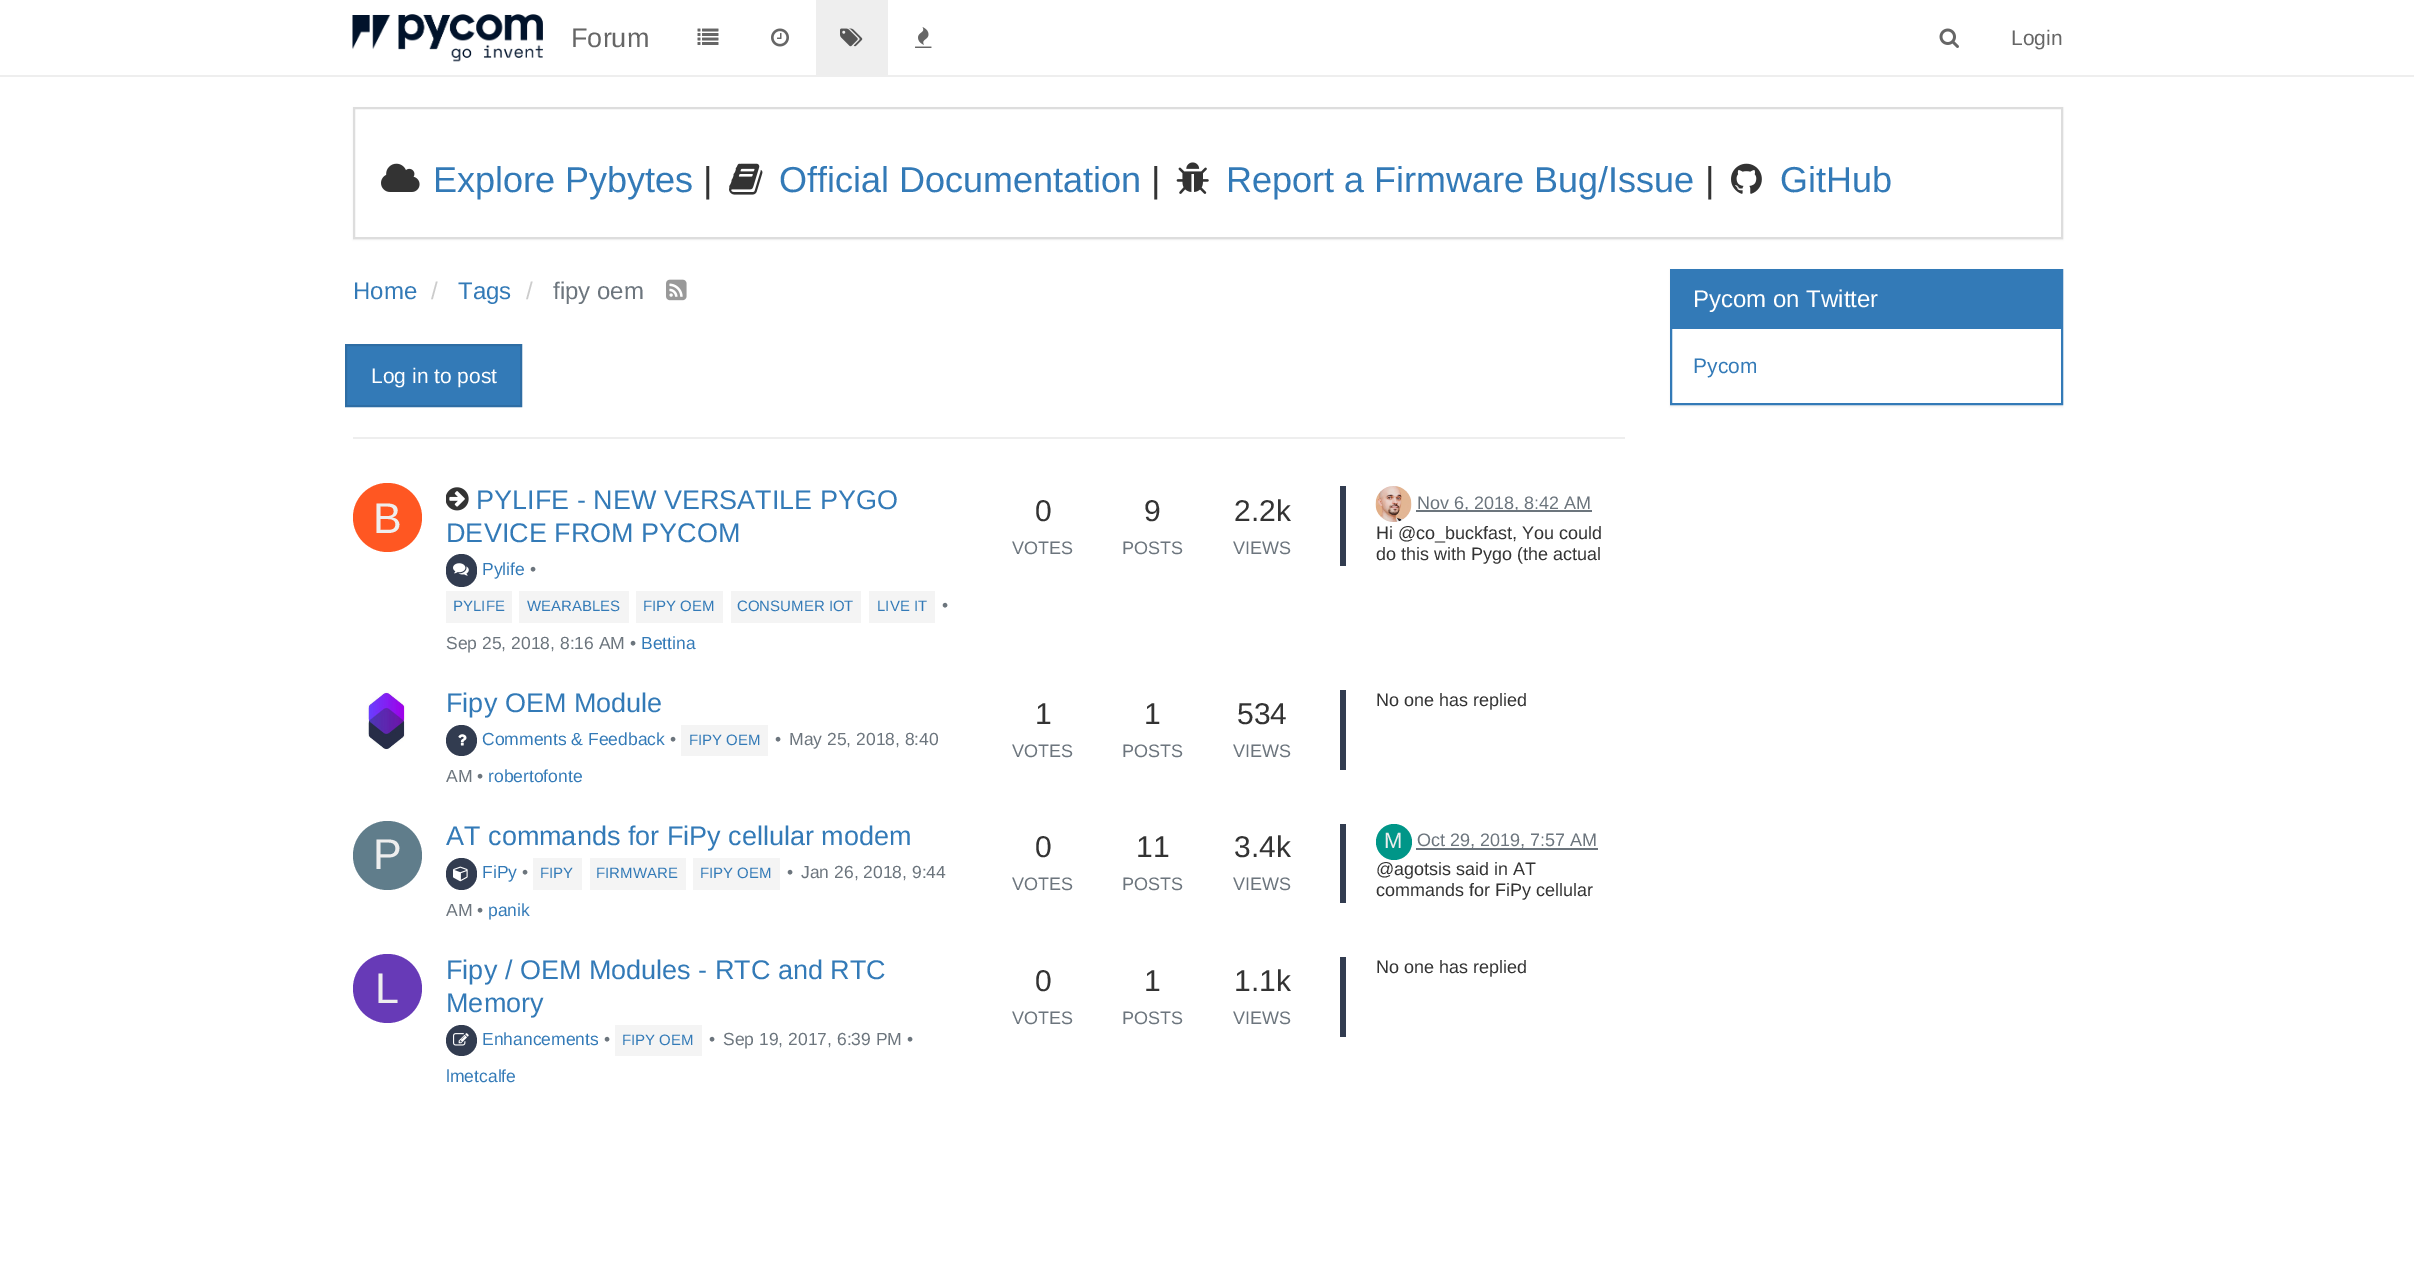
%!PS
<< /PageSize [2414 1267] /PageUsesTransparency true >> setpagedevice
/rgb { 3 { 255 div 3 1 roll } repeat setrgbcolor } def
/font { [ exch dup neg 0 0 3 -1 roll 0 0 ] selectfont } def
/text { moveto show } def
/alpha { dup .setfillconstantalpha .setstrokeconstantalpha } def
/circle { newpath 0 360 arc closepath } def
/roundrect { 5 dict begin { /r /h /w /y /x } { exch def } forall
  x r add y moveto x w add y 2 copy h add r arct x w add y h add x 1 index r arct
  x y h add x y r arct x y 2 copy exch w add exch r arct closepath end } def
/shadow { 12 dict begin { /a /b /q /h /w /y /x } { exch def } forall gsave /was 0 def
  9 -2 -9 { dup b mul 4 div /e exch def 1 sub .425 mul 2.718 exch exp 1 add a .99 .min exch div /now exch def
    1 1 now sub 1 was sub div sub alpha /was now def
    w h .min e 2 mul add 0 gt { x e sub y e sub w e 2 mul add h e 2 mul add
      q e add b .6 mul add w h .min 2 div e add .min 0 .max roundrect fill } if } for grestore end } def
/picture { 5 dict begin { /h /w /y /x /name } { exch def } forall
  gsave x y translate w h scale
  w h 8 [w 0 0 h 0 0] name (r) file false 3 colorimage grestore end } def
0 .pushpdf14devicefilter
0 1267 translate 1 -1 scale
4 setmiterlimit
255 255 255 rgb
0 0 2414 1267 rectfill
238 238 238 rgb
0 75 2414 2 rectfill
(img_01.rgb) 352 14 191 48 picture
(img_02.rgb) 697 28 22 17 picture
(img_03.rgb) 771 28 18 19 picture
816 0 72 75 rectfill
(img_04.rgb) 840 28 23 19 picture
(img_05.rgb) 915 27 17 21 picture
(img_06.rgb) 1939 28 20 20 picture
0 0 0 rgb
353 108 1710 132 0 1 0.05 shadow
255 255 255 rgb
354 108 moveto 1708 0 rlineto 0 130 rlineto -1708 0 rlineto closepath gsave fill grestore
221 221 221 rgb
2 setlinewidth
stroke
(img_07.rgb) 381 163 39 29 picture
(img_08.rgb) 729 163 34 32 picture
(img_09.rgb) 1176 162 33 32 picture
(img_10.rgb) 1731 163 31 31 picture
(img_11.rgb) 666 279 21 22 picture
51 122 183 rgb
346 345 moveto 175 0 rlineto 0 61 rlineto -175 0 rlineto closepath gsave fill grestore
46 109 164 rgb
stroke
238 238 238 rgb
353 437 1272 2 rectfill
255 87 34 rgb
387.5 517.5 34.5 circle fill
(img_12.rgb) 446 487 23 24 picture
50 60 80 rgb
446 554 31 33 15.5 roundrect fill
(img_13.rgb) 453 563 16 13 picture
244 244 244 rgb
446 591 66 32 rectfill
519 591 110 32 rectfill
636 591 87 32 rectfill
731 591 130 32 rectfill
869 591 66 32 rectfill
50 60 80 rgb
1340 486 6 80 rectfill
(img_14.rgb) 1375 486 37 36 picture
108 117 125 rgb
1416 510 176 2 rectfill
(img_15.rgb) 366 691 40 59 picture
50 60 80 rgb
461.5 740.5 15.5 circle fill
(img_16.rgb) 458 734 9 12 picture
244 244 244 rgb
681 725 87 31 rectfill
50 60 80 rgb
1340 690 6 80 rectfill
96 125 139 rgb
387.5 855.5 34.5 circle fill
50 60 80 rgb
446 858 31 32 15.5 roundrect fill
(img_17.rgb) 453 866 15 16 picture
244 244 244 rgb
533 858 49 32 rectfill
590 858 96 32 rectfill
693 858 87 32 rectfill
50 60 80 rgb
1340 824 6 79 rectfill
0 150 136 rgb
1394 842 18 circle fill
108 117 125 rgb
1416 848 182 2 rectfill
103 58 183 rgb
387.5 988.5 34.5 circle fill
50 60 80 rgb
461.5 1040.5 15.5 circle fill
(img_18.rgb) 453 1033 16 13 picture
244 244 244 rgb
615 1025 87 31 rectfill
50 60 80 rgb
1340 957 6 80 rectfill
0 0 0 rgb
1670 270 393 137 0 1 0.05 shadow
255 255 255 rgb
1672 329 389 74 rectfill
51 122 183 rgb
1671 270 391 134 rectstroke
1672 271 389 58 rectfill
/LiberationSans-Regular 27 font
102 102 102 rgb
(Forum) 571 47 text
/LiberationSans-Regular 21 font
(Login) 2011 45 text
/LiberationSans-Regular 36 font
51 122 183 rgb
(Explore Pybytes) 433 192 text
51 51 51 rgb
(|) 703 192 text
51 122 183 rgb
(Official Documentation) 779 192 text
51 51 51 rgb
(|) 1151 192 text
51 122 183 rgb
(Report a Firmware Bug/Issue) 1226 192 text
51 51 51 rgb
(|) 1705 192 text
51 122 183 rgb
(GitHub) 1780 192 text
/LiberationSans-Regular 24 font
(Home) 353 299 text
204 204 204 rgb
(/) 431 299 text
51 122 183 rgb
(Tags) 458 299 text
204 204 204 rgb
(/) 526 299 text
108 117 125 rgb
(fipy oem) 553 299 text
/LiberationSans-Regular 21 font
255 255 255 rgb
(Log in to post) 371 383 text
/LiberationSans-Regular 43 font
238 238 238 rgb
(B) 373 533 text
/LiberationSans-Regular 27 font
51 122 183 rgb
(PYLIFE - NEW VERSATILE PYGO) 476 509 text
(DEVICE FROM PYCOM) 446 542 text
/LiberationSans-Regular 17.5 font
(Pylife) 482 575 text
108 117 125 rgb
(•) 530 575 text
/LiberationSans-Regular 15 font
51 122 183 rgb
(PYLIFE) 453 611 text
(WEARABLES) 527 611 text
(FIPY OEM) 643 611 text
(CONSUMER IOT) 737 611 text
(LIVE IT) 877 611 text
/LiberationSans-Regular 17.5 font
108 117 125 rgb
(•) 942 611 text
(Sep 25, 2018, 8:16 AM •) 446 649 text
51 122 183 rgb
(Bettina) 641 649 text
/LiberationSans-Regular 30 font
51 51 51 rgb
(0) 1035 521 text
/LiberationSans-Regular 18 font
108 117 125 rgb
(VOTES) 1012 554 text
/LiberationSans-Regular 30 font
51 51 51 rgb
(9) 1144 521 text
/LiberationSans-Regular 18 font
108 117 125 rgb
(POSTS) 1122 554 text
/LiberationSans-Regular 30 font
51 51 51 rgb
(2.2k) 1234 521 text
/LiberationSans-Regular 18 font
108 117 125 rgb
(VIEWS) 1233 554 text
(Nov 6, 2018, 8:42 AM) 1417 509 text
51 51 51 rgb
(Hi @co_buckfast, You could) 1376 539 text
(do this with Pygo \(the actual) 1376 560 text
/LiberationSans-Regular 27 font
51 122 183 rgb
(Fipy OEM Module) 446 712 text
/LiberationSans-Regular 17.5 font
(Comments & Feedback) 482 745 text
108 117 125 rgb
(•) 670 745 text
/LiberationSans-Regular 15 font
51 122 183 rgb
(FIPY OEM) 689 745 text
/LiberationSans-Regular 17.5 font
108 117 125 rgb
(•) 775 745 text
(May 25, 2018, 8:40) 789 745 text
(AM •) 446 782 text
51 122 183 rgb
(robertofonte) 488 782 text
/LiberationSans-Regular 18 font
51 51 51 rgb
(No one has replied) 1376 706 text
/LiberationSans-Regular 30 font
(1) 1035 724 text
/LiberationSans-Regular 18 font
108 117 125 rgb
(VOTES) 1012 757 text
/LiberationSans-Regular 30 font
51 51 51 rgb
(1) 1144 724 text
/LiberationSans-Regular 18 font
108 117 125 rgb
(POSTS) 1122 757 text
/LiberationSans-Regular 30 font
51 51 51 rgb
(534) 1237 724 text
/LiberationSans-Regular 18 font
108 117 125 rgb
(VIEWS) 1233 757 text
/LiberationSans-Regular 43 font
238 238 238 rgb
(P) 373 869 text
/LiberationSans-Regular 27 font
51 122 183 rgb
(AT commands for FiPy cellular modem) 446 845 text
/LiberationSans-Regular 17.5 font
(FiPy) 482 878 text
108 117 125 rgb
(•) 522 878 text
/LiberationSans-Regular 15 font
51 122 183 rgb
(FIPY) 540 878 text
(FIRMWARE) 596 878 text
(FIPY OEM) 700 878 text
/LiberationSans-Regular 17.5 font
108 117 125 rgb
(•) 787 878 text
(Jan 26, 2018, 9:44) 801 878 text
(AM •) 446 916 text
51 122 183 rgb
(panik) 488 916 text
/LiberationSans-Regular 30 font
51 51 51 rgb
(0) 1035 857 text
/LiberationSans-Regular 18 font
108 117 125 rgb
(VOTES) 1012 890 text
/LiberationSans-Regular 30 font
51 51 51 rgb
(11) 1136 857 text
/LiberationSans-Regular 18 font
108 117 125 rgb
(POSTS) 1122 890 text
/LiberationSans-Regular 30 font
51 51 51 rgb
(3.4k) 1234 857 text
/LiberationSans-Regular 18 font
108 117 125 rgb
(VIEWS) 1233 890 text
/LiberationSans-Regular 22 font
238 238 238 rgb
(M) 1384 848 text
/LiberationSans-Regular 18 font
108 117 125 rgb
(Oct 29, 2019, 7:57 AM) 1417 846 text
51 51 51 rgb
(@agotsis said in AT) 1376 875 text
(commands for FiPy cellular) 1376 896 text
/LiberationSans-Regular 43 font
238 238 238 rgb
(L) 375 1003 text
/LiberationSans-Regular 27 font
51 122 183 rgb
(Fipy / OEM Modules - RTC and RTC) 446 979 text
(Memory) 446 1012 text
/LiberationSans-Regular 17.5 font
(Enhancements) 482 1045 text
108 117 125 rgb
(•) 604 1045 text
/LiberationSans-Regular 15 font
51 122 183 rgb
(FIPY OEM) 622 1045 text
/LiberationSans-Regular 17.5 font
108 117 125 rgb
(•) 709 1045 text
(Sep 19, 2017, 6:39 PM •) 723 1045 text
51 122 183 rgb
(lmetcalfe) 446 1082 text
/LiberationSans-Regular 30 font
51 51 51 rgb
(0) 1035 991 text
/LiberationSans-Regular 18 font
108 117 125 rgb
(VOTES) 1012 1024 text
/LiberationSans-Regular 30 font
51 51 51 rgb
(1) 1144 991 text
/LiberationSans-Regular 18 font
108 117 125 rgb
(POSTS) 1122 1024 text
/LiberationSans-Regular 30 font
51 51 51 rgb
(1.1k) 1234 991 text
/LiberationSans-Regular 18 font
108 117 125 rgb
(VIEWS) 1233 1024 text
51 51 51 rgb
(No one has replied) 1376 973 text
/LiberationSans-Regular 24 font
255 255 255 rgb
(Pycom on Twitter) 1693 307 text
/LiberationSans-Regular 21 font
51 122 183 rgb
(Pycom) 1693 373 text
.poppdf14devicefilter showpage
